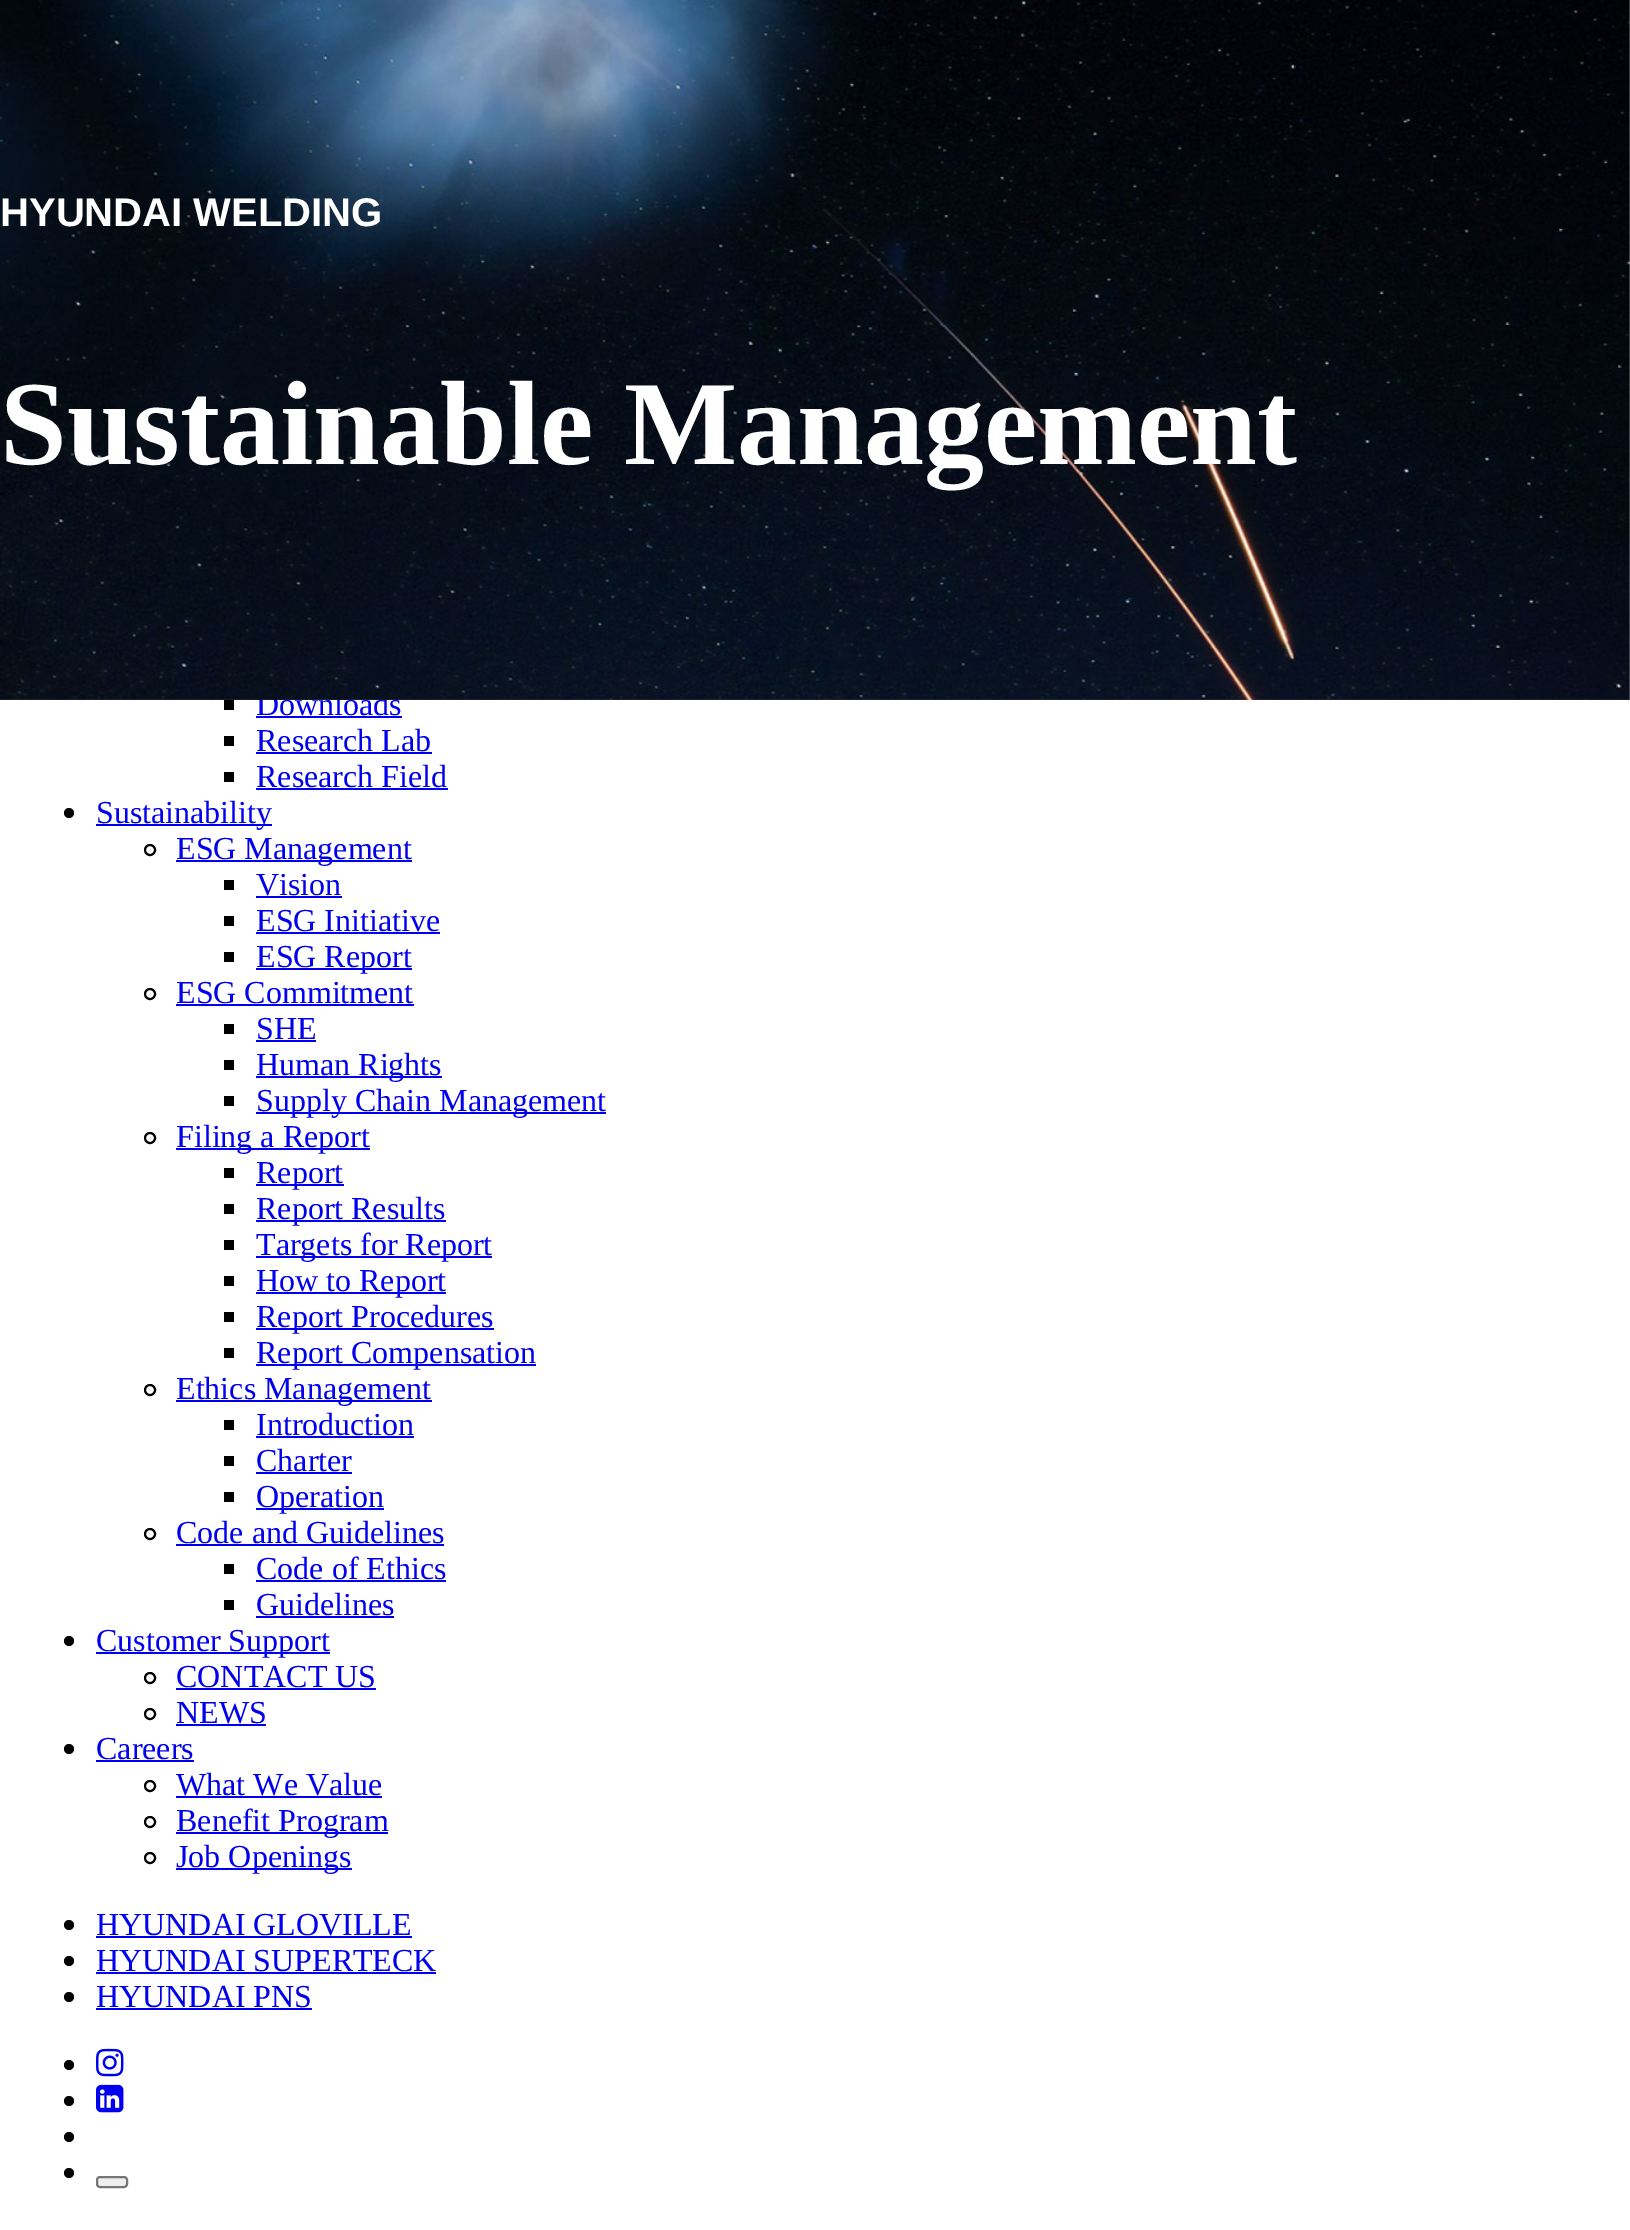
%!PS
<< /PageSize [1630 2230] >> setpagedevice
/rgb { 3 { 255 div 3 1 roll } repeat setrgbcolor } def
/font { [ exch dup neg 0 0 3 -1 roll 0 0 ] selectfont } def
/text { moveto show } def
/circle { newpath 0 360 arc closepath } def
/roundrect { 5 dict begin { /r /h /w /y /x } { exch def } forall
  x r add y moveto x w add y 2 copy h add r arct x w add y h add x 1 index r arct
  x y h add x y r arct x y 2 copy exch w add exch r arct closepath end } def
/picture { 5 dict begin { /h /w /y /x /name } { exch def } forall
  gsave x y translate w h scale
  w h 8 [w 0 0 h 0 0] name (r) file false 3 colorimage grestore end } def
0 2230 translate 1 -1 scale
4 setmiterlimit
255 255 255 rgb
0 0 1630 2230 rectfill
0 0 0 rgb
224 700 10 10 rectfill
0 0 238 rgb
256 716 146 2 rectfill
0 0 0 rgb
224 736 10 10 rectfill
0 0 238 rgb
256 752 176 2 rectfill
0 0 0 rgb
224 772 10 10 rectfill
0 0 238 rgb
256 788 192 2 rectfill
0 0 0 rgb
69 813 5 circle fill
0 0 238 rgb
96 824 176 2 rectfill
0 0 0 rgb
2 setlinewidth
150 850 5 circle stroke
0 0 238 rgb
176 860 236 2 rectfill
0 0 0 rgb
224 880 10 10 rectfill
0 0 238 rgb
256 896 86 2 rectfill
0 0 0 rgb
224 916 10 10 rectfill
0 0 238 rgb
256 932 184 2 rectfill
0 0 0 rgb
224 952 10 10 rectfill
0 0 238 rgb
256 968 156 2 rectfill
0 0 0 rgb
150 994 5 circle stroke
0 0 238 rgb
176 1004 238 2 rectfill
0 0 0 rgb
224 1024 10 10 rectfill
0 0 238 rgb
256 1040 60 2 rectfill
0 0 0 rgb
224 1060 10 10 rectfill
0 0 238 rgb
256 1076 186 2 rectfill
0 0 0 rgb
224 1096 10 10 rectfill
0 0 238 rgb
256 1112 350 2 rectfill
0 0 0 rgb
150 1138 5 circle stroke
0 0 238 rgb
176 1148 194 2 rectfill
0 0 0 rgb
224 1168 10 10 rectfill
0 0 238 rgb
256 1184 88 2 rectfill
0 0 0 rgb
224 1204 10 10 rectfill
0 0 238 rgb
256 1220 190 2 rectfill
0 0 0 rgb
224 1240 10 10 rectfill
0 0 238 rgb
256 1256 236 2 rectfill
0 0 0 rgb
224 1276 10 10 rectfill
0 0 238 rgb
256 1292 190 2 rectfill
0 0 0 rgb
224 1312 10 10 rectfill
0 0 238 rgb
256 1328 238 2 rectfill
0 0 0 rgb
224 1348 10 10 rectfill
0 0 238 rgb
256 1364 280 2 rectfill
0 0 0 rgb
150 1390 5 circle stroke
0 0 238 rgb
176 1400 256 2 rectfill
0 0 0 rgb
224 1420 10 10 rectfill
0 0 238 rgb
256 1436 158 2 rectfill
0 0 0 rgb
224 1456 10 10 rectfill
0 0 238 rgb
256 1472 96 2 rectfill
0 0 0 rgb
224 1492 10 10 rectfill
0 0 238 rgb
256 1508 128 2 rectfill
0 0 0 rgb
150 1534 5 circle stroke
0 0 238 rgb
176 1544 268 2 rectfill
0 0 0 rgb
224 1564 10 10 rectfill
0 0 238 rgb
256 1580 190 2 rectfill
0 0 0 rgb
224 1600 10 10 rectfill
0 0 238 rgb
256 1616 138 2 rectfill
0 0 0 rgb
69 1641 5 circle fill
0 0 238 rgb
96 1652 234 2 rectfill
0 0 0 rgb
150 1678 5 circle stroke
0 0 238 rgb
176 1688 200 2 rectfill
0 0 0 rgb
150 1714 5 circle stroke
0 0 238 rgb
176 1724 90 2 rectfill
0 0 0 rgb
69 1749 5 circle fill
0 0 238 rgb
96 1760 98 2 rectfill
0 0 0 rgb
150 1786 5 circle stroke
0 0 238 rgb
176 1796 206 2 rectfill
0 0 0 rgb
150 1822 5 circle stroke
0 0 238 rgb
176 1832 212 2 rectfill
0 0 0 rgb
150 1858 5 circle stroke
0 0 238 rgb
176 1868 176 2 rectfill
0 0 0 rgb
69 1925 5 circle fill
0 0 238 rgb
96 1936 316 2 rectfill
0 0 0 rgb
69 1961 5 circle fill
0 0 238 rgb
96 1972 340 2 rectfill
0 0 0 rgb
69 1997 5 circle fill
0 0 238 rgb
96 2008 216 2 rectfill
0 0 0 rgb
69 2065 5 circle fill
(img_02.rgb) 96 2048 28 29 picture
69 2101 5 circle fill
(img_03.rgb) 96 2084 28 29 picture
69 2137 5 circle fill
69 2173 5 circle fill
239 239 239 rgb
97 2177 30 10 3 roundrect gsave fill grestore
118 118 118 rgb
stroke
/LiberationSerif-Regular 32 font
0 0 238 rgb
(Downloads) 256 715 text
(img_01.rgb) 0 0 1630 700 picture
/LiberationSerif-Bold 120 font
255 255 255 rgb
(Sustainable Management) 0 464 text
/LiberationSans-Bold 40 font
(HYUNDAI WELDING) 0 226 text
/LiberationSerif-Regular 32 font
0 0 238 rgb
(Research Lab) 256 751 text
(Research Field) 256 787 text
(Sustainability) 96 823 text
(ESG Management) 176 859 text
(Vision) 256 895 text
(ESG Initiative) 256 931 text
(ESG Report) 256 967 text
(ESG Commitment) 176 1003 text
(SHE) 256 1039 text
(Human Rights) 256 1075 text
(Supply Chain Management) 256 1111 text
(Filing a Report) 176 1147 text
(Report) 256 1183 text
(Report Results) 256 1219 text
(Targets for Report) 256 1255 text
(How to Report) 256 1291 text
(Report Procedures) 256 1327 text
(Report Compensation) 256 1363 text
(Ethics Management) 176 1399 text
(Introduction) 256 1435 text
(Charter) 256 1471 text
(Operation) 256 1507 text
(Code and Guidelines) 176 1543 text
(Code of Ethics) 256 1579 text
(Guidelines) 256 1615 text
(Customer Support) 96 1651 text
(CONTACT US) 176 1687 text
(NEWS) 176 1723 text
(Careers) 96 1759 text
(What We Value) 176 1795 text
(Benefit Program) 176 1831 text
(Job Openings) 176 1867 text
(HYUNDAI GLOVILLE) 96 1935 text
(HYUNDAI SUPERTECK) 96 1971 text
(HYUNDAI PNS) 96 2007 text
showpage
